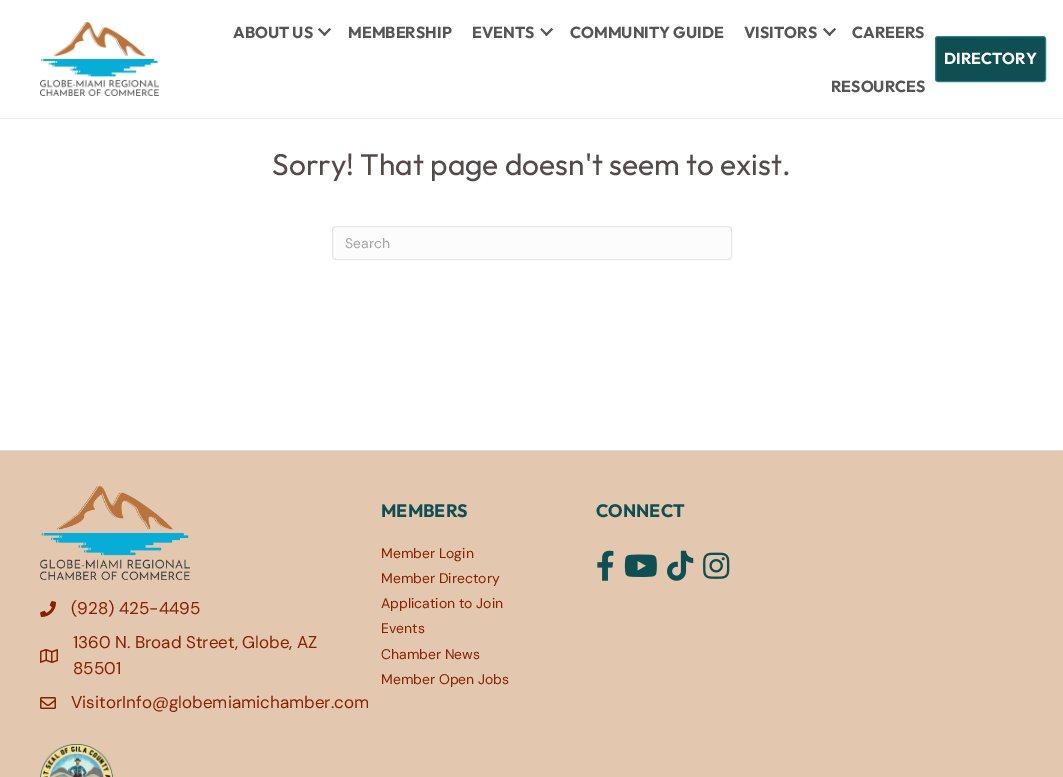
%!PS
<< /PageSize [1063 777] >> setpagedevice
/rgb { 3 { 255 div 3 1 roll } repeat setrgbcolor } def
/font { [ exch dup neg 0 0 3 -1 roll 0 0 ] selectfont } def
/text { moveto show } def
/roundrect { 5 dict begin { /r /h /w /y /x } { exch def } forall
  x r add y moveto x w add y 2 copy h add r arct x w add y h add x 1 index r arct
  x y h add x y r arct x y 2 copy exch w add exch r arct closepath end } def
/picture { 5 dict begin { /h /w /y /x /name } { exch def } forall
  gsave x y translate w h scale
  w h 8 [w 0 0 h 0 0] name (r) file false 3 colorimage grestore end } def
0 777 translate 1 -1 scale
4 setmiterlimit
255 255 255 rgb
0 0 1063 777 rectfill
239 239 239 rgb
0 118 1063 1 rectfill
(img_01.rgb) 40 22 119 74 picture
85 85 85 rgb
329.5 28 moveto 1.5 1.5 rlineto -6.5 6.5 rlineto -1.5 -1.5 rlineto closepath fill
319.5 28 moveto 6.5 6.5 rlineto -1.5 1.5 rlineto -6.5 -6.5 rlineto closepath fill
551.5 28 moveto 1.5 1.5 rlineto -6.5 6.5 rlineto -1.5 -1.5 rlineto closepath fill
541.5 28 moveto 6.5 6.5 rlineto -1.5 1.5 rlineto -6 -6.5 rlineto closepath fill
834.5 28 moveto 1.5 1.5 rlineto -6.5 6.5 rlineto -1.5 -1.5 rlineto closepath fill
824.5 28 moveto 6.5 6.5 rlineto -1.5 1.5 rlineto -6.5 -6.5 rlineto closepath fill
15 78 83 rgb
935.5 36.5 110 45 2.5 roundrect gsave fill grestore
42 131 135 rgb
stroke
252 252 252 rgb
332.5 226.5 399 33 3.5 roundrect gsave fill grestore
230 230 230 rgb
stroke
227 199 174 rgb
0 451 1063 326 rectfill
218 218 218 rgb
0 450 1063 1 rectfill
(img_02.rgb) 597 550 17 31 picture
(img_03.rgb) 624 554 33 23 picture
(img_04.rgb) 667 550 27 31 picture
(img_05.rgb) 703 552 27 27 picture
(img_06.rgb) 40 486 150 94 picture
(img_07.rgb) 40 601 16 16 picture
(img_08.rgb) 40 649 18 14 picture
(img_09.rgb) 40 697 16 12 picture
(img_10.rgb) 40 744 73 33 picture
/Outfit-Bold 16 font
85 85 85 rgb
(ABOUT US) 233 38 text
(MEMBERSHIP) 348 38 text
(EVENTS) 472 38 text
(COMMUNITY GUIDE) 570 38 text
(VISITORS) 744 38 text
(CAREERS) 852 38 text
(RESOURCES) 831 92 text
255 255 255 rgb
(DIRECTORY) 944 64 text
/Outfit-Regular 30 font
84 74 74 rgb
(Sorry! That page doesn't seem to exist.) 272 175 text
/DMSans-Regular 14 font
165 165 165 rgb
(Search) 345 248 text
/Outfit-Bold 18 font
15 78 83 rgb
(MEMBERS) 381 517 text
/DMSans-Regular 14 font
137 32 0 rgb
(Member Login) 381 558 text
(Member Directory) 381 583 text
(Application to Join) 381 608 text
(Events) 381 633 text
(Chamber News) 381 659 text
(Member Open Jobs) 381 684 text
/Outfit-Bold 18 font
15 78 83 rgb
(CONNECT) 596 517 text
/DMSans-Regular 17 font
137 32 0 rgb
(\(928\) 425-4495) 71 614 text
(1360 N. Broad Street, Globe, AZ) 73 648 text
(85501) 73 674 text
(VisitorInfo@globemiamichamber.com) 71 708 text
showpage
